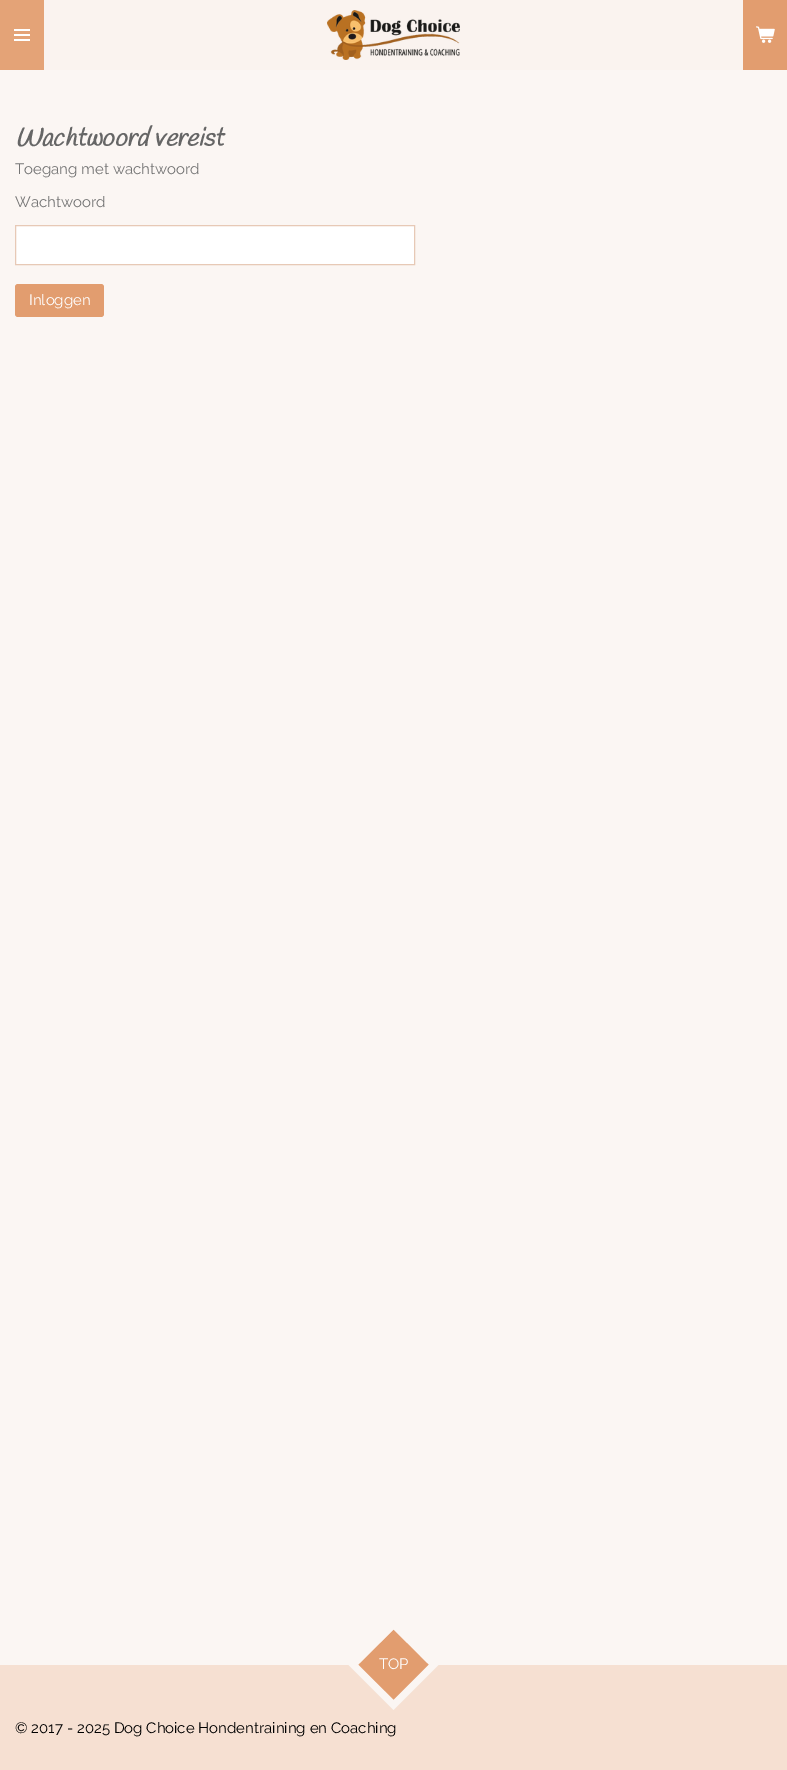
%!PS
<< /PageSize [787 1770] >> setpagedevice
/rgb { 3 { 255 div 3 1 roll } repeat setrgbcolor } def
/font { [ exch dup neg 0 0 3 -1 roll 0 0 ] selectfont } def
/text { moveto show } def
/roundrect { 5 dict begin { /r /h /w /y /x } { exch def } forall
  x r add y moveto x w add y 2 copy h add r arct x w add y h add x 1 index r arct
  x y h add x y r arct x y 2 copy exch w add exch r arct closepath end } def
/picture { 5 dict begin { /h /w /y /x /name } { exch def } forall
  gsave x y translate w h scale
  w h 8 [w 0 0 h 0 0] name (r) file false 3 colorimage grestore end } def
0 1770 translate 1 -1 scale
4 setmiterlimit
251 246 243 rgb
0 0 787 1770 rectfill
228 163 119 rgb
0 0 44 70 rectfill
255 255 255 rgb
14 34 16 2 rectfill
14 29 16 2 rectfill
14 39 16 2 rectfill
250 243 239 rgb
44 0 699 70 rectfill
(img_01.rgb) 327 10 133 50 picture
226 157 111 rgb
743 0 44 70 rectfill
(img_02.rgb) 756 26 19 17 picture
255 255 255 rgb
15.5 225.5 moveto 399 0 rlineto 0 39 rlineto -399 0 rlineto closepath gsave fill grestore
231 201 182 rgb
stroke
226 157 111 rgb
15 284 89 33 3 roundrect fill
246 224 210 rgb
0 1665 787 105 rectfill
226 157 111 rgb
394 1629 moveto 35 36 rlineto -35 35 rlineto -36 -35 rlineto closepath fill
251 246 243 rgb
7 setlinewidth
393.5 1624.5 moveto 40.5 40 rlineto -40.5 40.5 rlineto -40.5 -40.5 rlineto closepath stroke
/Handlee-BoldItalic 25 font
102 102 102 rgb
(Wachtwoord vereist) 15 146 text
/Raleway-Regular 15 font
117 117 117 rgb
(Toegang met wachtwoord) 15 174 text
(Wachtwoord) 15 207 text
255 255 255 rgb
(Inloggen) 29 305 text
(TOP) 379 1669 text
0 0 0 rgb
(© 2017 - 2025 Dog Choice Hondentraining en Coaching) 15 1733 text
showpage
